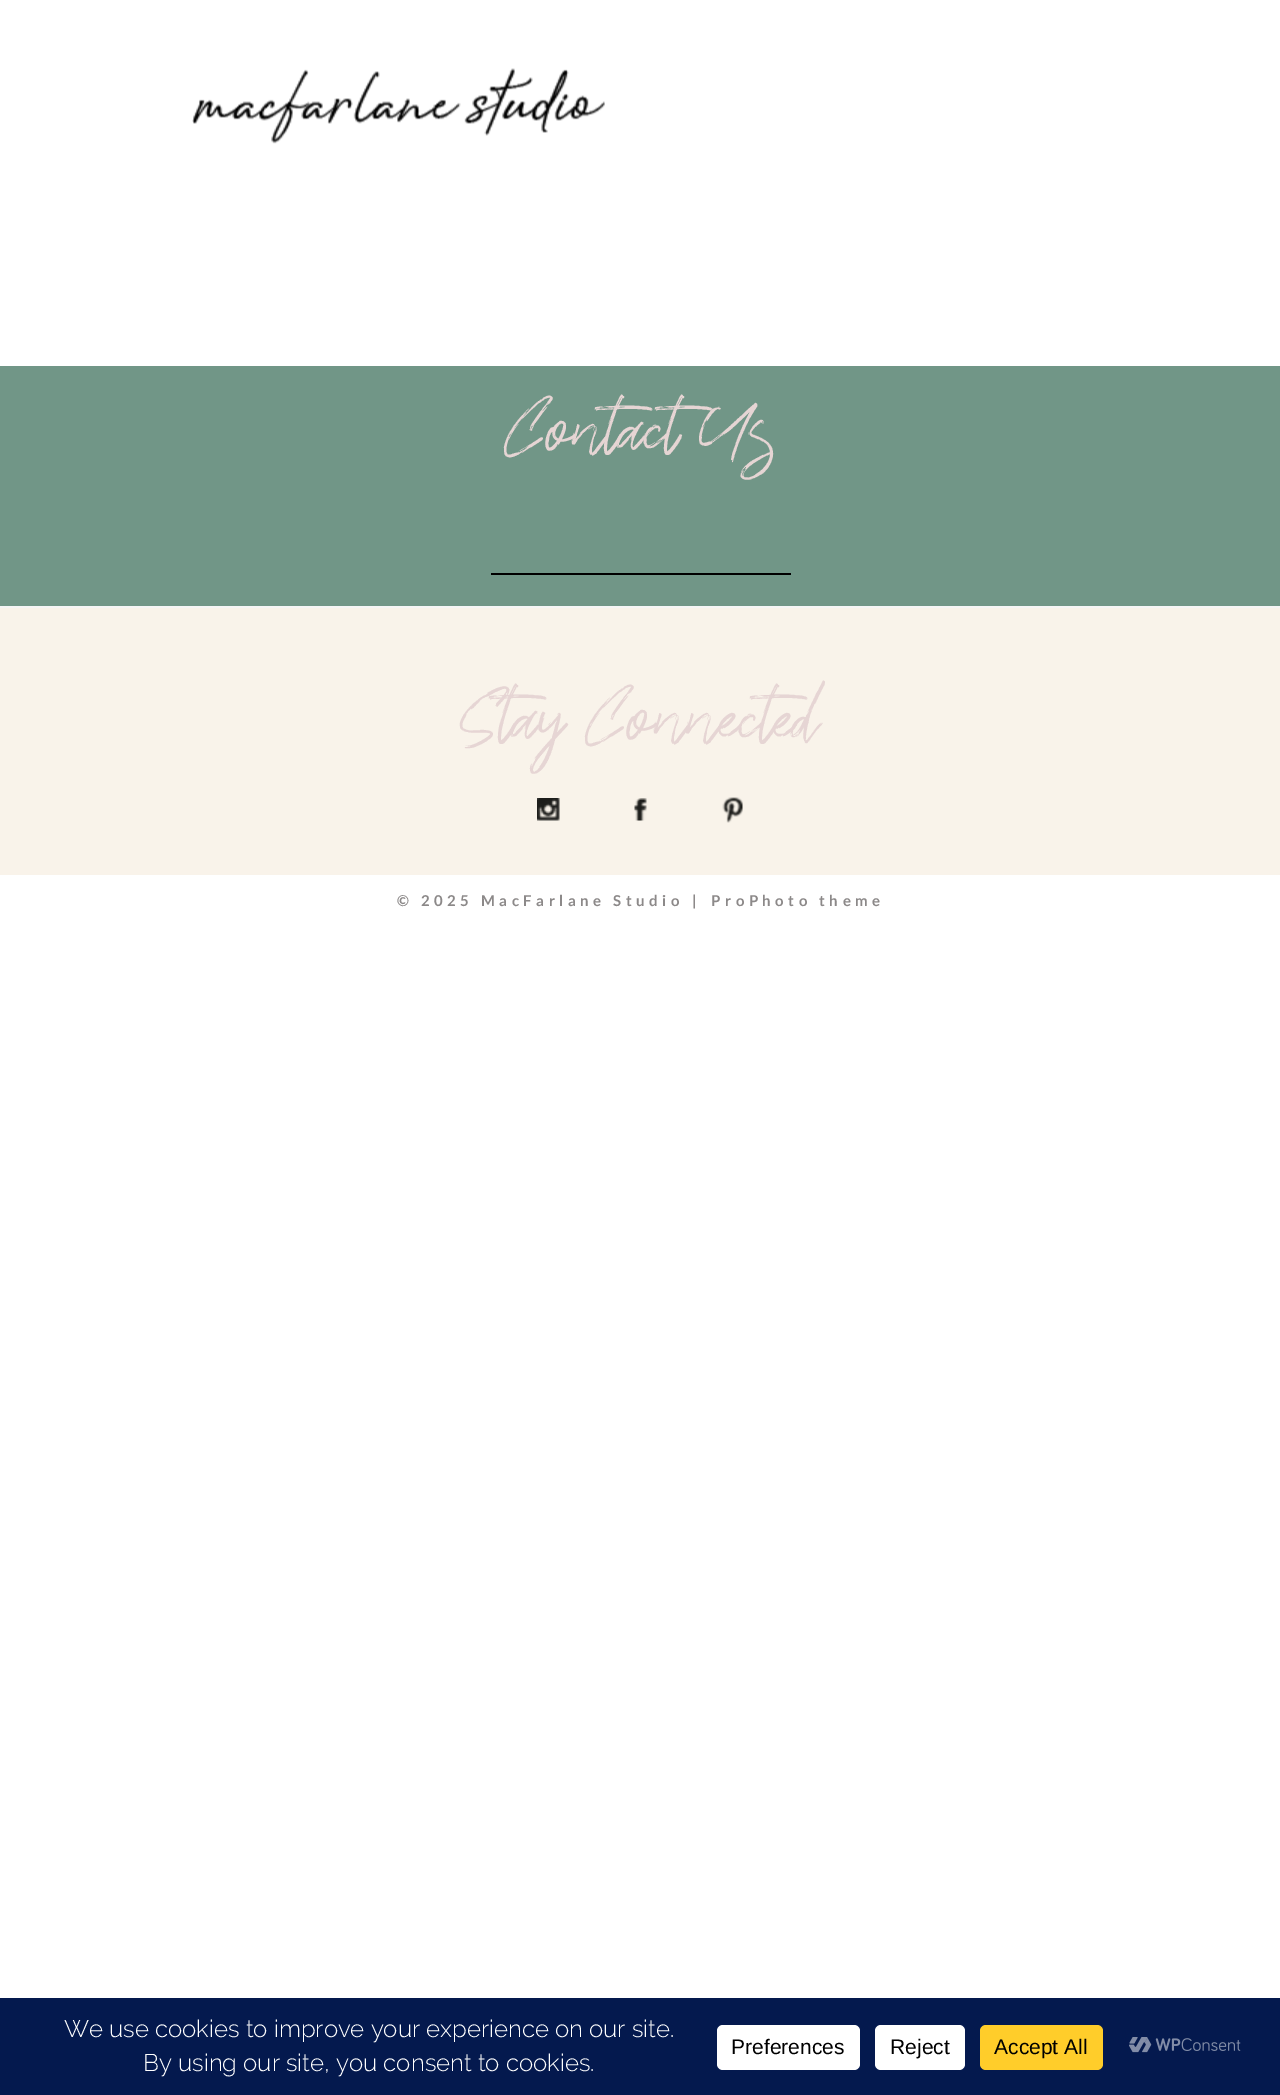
%!PS
<< /PageSize [1280 2095] >> setpagedevice
/rgb { 3 { 255 div 3 1 roll } repeat setrgbcolor } def
/font { [ exch dup neg 0 0 3 -1 roll 0 0 ] selectfont } def
/text { moveto show } def
/roundrect { 5 dict begin { /r /h /w /y /x } { exch def } forall
  x r add y moveto x w add y 2 copy h add r arct x w add y h add x 1 index r arct
  x y h add x y r arct x y 2 copy exch w add exch r arct closepath end } def
/picture { 5 dict begin { /h /w /y /x /name } { exch def } forall
  gsave x y translate w h scale
  w h 8 [w 0 0 h 0 0] name (r) file false 3 colorimage grestore end } def
0 2095 translate 1 -1 scale
4 setmiterlimit
255 255 255 rgb
0 0 1280 2095 rectfill
(img_01.rgb) 192 68 413 76 picture
113 150 135 rgb
0 366 1280 240 rectfill
0 0 0 rgb
491 573 300 2 rectfill
249 243 234 rgb
0 608 1280 267 rectfill
245 245 245 rgb
0 606 1280 2 rectfill
(img_02.rgb) 537 798 23 23 picture
(img_03.rgb) 634 798 13 23 picture
(img_04.rgb) 722 797 21 26 picture
4 25 78 rgb
0 1998 1280 97 rectfill
255 255 255 rgb
717 2025 143 45 6 roundrect fill
875 2025 90 45 6 roundrect fill
255 205 42 rgb
980 2025 123 45 6 roundrect fill
(img_05.rgb) 1129 2037 112 16 picture
/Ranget-Regular 87 font
230 213 212 rgb
(Contact Us) 504 461 text
(Stay Connected) 460 750 text
/Lato-Bold 15 font
140 137 137 rgb
397 906 moveto 4.5 0 (© 2025 MacFarlane Studio) ashow
692 906 moveto 4.5 0 (|) ashow
711 906 moveto 4.5 0 (ProPhoto theme) ashow
/Raleway-Light 24 font
255 255 255 rgb
(We use cookies to improve your experience on our site.) 64 2037 text
(By using our site, you consent to cookies.) 143 2071 text
/LiberationSans-Regular 21 font
0 0 0 rgb
(Preferences) 731 2054 text
(Reject) 890 2054 text
(Accept All) 994 2054 text
showpage
